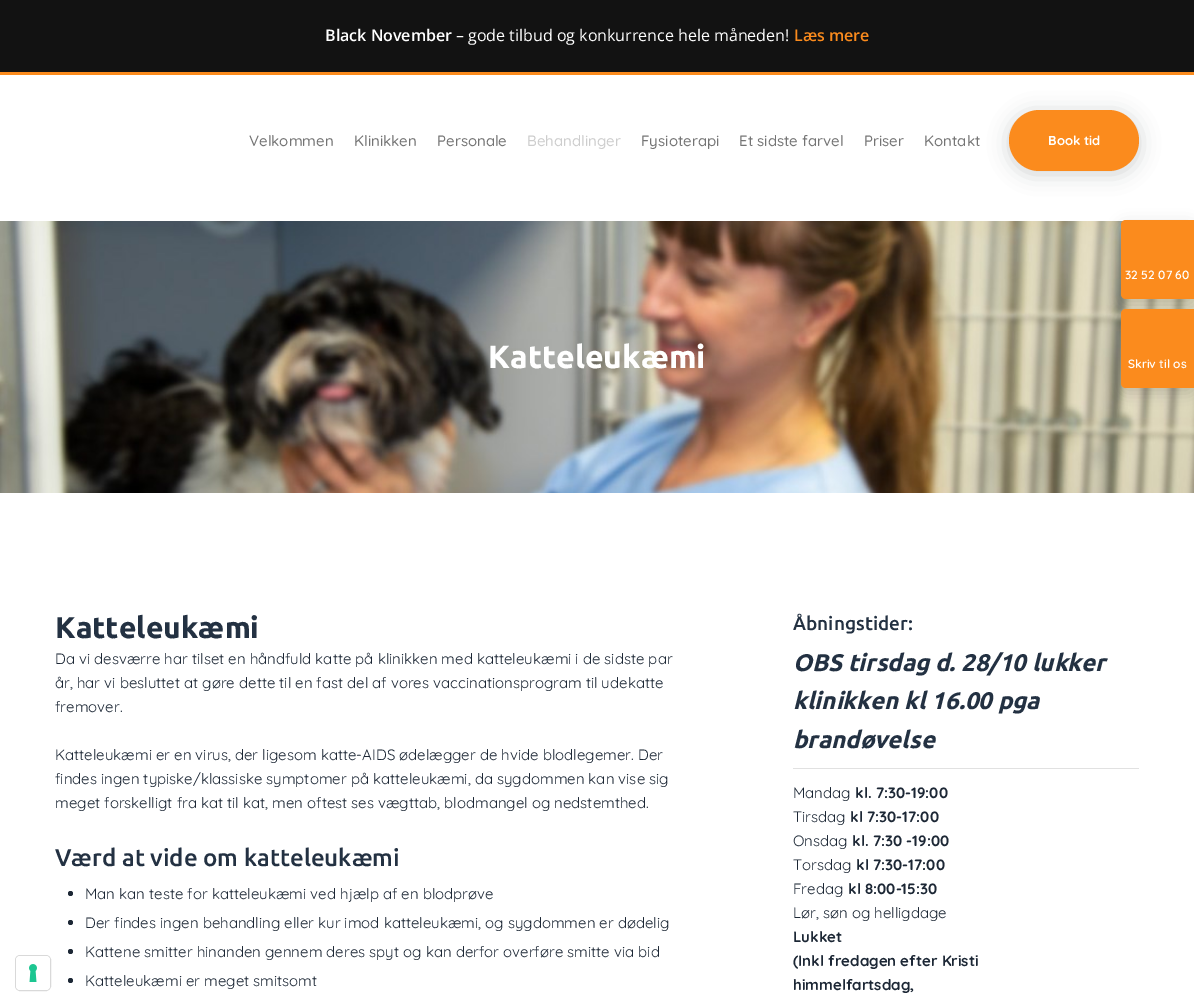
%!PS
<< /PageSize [1194 1006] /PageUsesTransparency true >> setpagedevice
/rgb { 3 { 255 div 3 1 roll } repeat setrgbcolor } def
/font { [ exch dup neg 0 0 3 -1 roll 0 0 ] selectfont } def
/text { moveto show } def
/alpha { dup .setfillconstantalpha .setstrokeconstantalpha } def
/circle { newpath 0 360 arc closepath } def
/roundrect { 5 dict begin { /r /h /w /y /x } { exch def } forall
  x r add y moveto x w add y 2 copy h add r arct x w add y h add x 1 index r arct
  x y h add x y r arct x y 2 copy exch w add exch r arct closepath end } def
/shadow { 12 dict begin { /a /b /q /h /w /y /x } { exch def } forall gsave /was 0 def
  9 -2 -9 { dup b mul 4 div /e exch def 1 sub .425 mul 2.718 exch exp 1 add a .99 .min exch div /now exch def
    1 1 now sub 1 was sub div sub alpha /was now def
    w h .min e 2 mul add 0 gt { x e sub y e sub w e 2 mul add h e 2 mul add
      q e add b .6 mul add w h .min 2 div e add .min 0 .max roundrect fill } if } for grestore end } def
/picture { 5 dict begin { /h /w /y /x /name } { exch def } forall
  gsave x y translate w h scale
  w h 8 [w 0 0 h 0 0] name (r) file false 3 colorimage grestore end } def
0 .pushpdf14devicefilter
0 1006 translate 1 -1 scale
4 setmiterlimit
255 255 255 rgb
0 0 1194 1006 rectfill
217 217 217 rgb
15.5 955.5 35 35 4.5 roundrect stroke
255 255 255 rgb
16 956 34 34 4 roundrect fill
(img_01.rgb) 29 964 8 18 picture
18 18 18 rgb
0 0 1194 72 rectfill
251 139 29 rgb
0 72 1194 3 rectfill
26 34 40 rgb
1009 113 130 61 30.5 10 0.2 shadow
251 139 29 rgb
1009 110 130 61 30.5 roundrect fill
(img_02.rgb) 0 221 1194 272 picture
0 0 0 rgb
1121 225 73 79 5 7.5 0.15 shadow
251 139 29 rgb
1126 220 moveto 68 0 rlineto 0 79 rlineto -68 0 rlineto -3 0 -5 -2 -5 -5 rcurveto 0 -69 rlineto 0 -3 2 -5 5 -5 rcurveto closepath fill
0 0 0 rgb
1121 314 73 79 5 7.5 0.15 shadow
251 139 29 rgb
1126 309 moveto 68 0 rlineto 0 79 rlineto -68 0 rlineto -3 0 -5 -2 -5 -5 rcurveto 0 -69 rlineto 0 -3 2 -5 5 -5 rcurveto closepath fill
28 39 53 rgb
70.5 893.5 2.5 circle fill
70.5 922.5 2.5 circle fill
70.5 951.5 2.5 circle fill
70.5 980.5 2.5 circle fill
225 225 225 rgb
793 768 346 1 rectfill
/OpenSans-SemiBold 16 font
255 255 255 rgb
(Black November) 325 41 text
/OpenSans-Regular 16 font
(– gode tilbud og konkurrence hele måneden!) 456 41 text
/OpenSans-SemiBold 16 font
251 139 29 rgb
(Læs mere) 794 41 text
/Quicksand-Medium 15 font
116 116 116 rgb
(Velkommen) 249 146 text
(Klinikken) 354 146 text
(Personale) 437 146 text
205 205 205 rgb
(Behandlinger) 527 146 text
116 116 116 rgb
(Fysioterapi) 641 146 text
(Et sidste farvel) 739 146 text
(Priser) 864 146 text
(Kontakt) 924 146 text
/Quicksand-Bold 13 font
255 255 255 rgb
(Book tid) 1048 145 text
/Ubuntu-Bold 32 font
(Katteleukæmi) 488 368 text
/Quicksand-SemiBold 12 font
(32 52 07 60) 1125 279 text
(Skriv til os) 1128 368 text
/Ubuntu-Bold 30 font
35 49 66 rgb
(Katteleukæmi) 55 638 text
/Quicksand-Regular 15 font
28 39 53 rgb
(Da vi desværre har tilset en håndfuld katte på klinikken med katteleukæmi i de sidste par) 55 664 text
(år, har vi besluttet at gøre dette til en fast del af vores vaccinationsprogram til udekatte) 55 688 text
(fremover.) 55 712 text
(Katteleukæmi er en virus, der ligesom katte-AIDS ødelægger de hvide blodlegemer. Der) 55 760 text
(findes ingen typiske/klassiske symptomer på katteleukæmi, da sygdommen kan vise sig) 55 784 text
(meget forskelligt fra kat til kat, men oftest ses vægttab, blodmangel og nedstemthed.) 55 808 text
/Ubuntu-Medium 24 font
35 49 66 rgb
(Værd at vide om katteleukæmi) 55 866 text
/Quicksand-Regular 15 font
28 39 53 rgb
(Man kan teste for katteleukæmi ved hjælp af en blodprøve) 85 899 text
(Der findes ingen behandling eller kur imod katteleukæmi, og sygdommen er dødelig) 85 928 text
(Kattene smitter hinanden gennem deres spyt og kan derfor overføre smitte via bid) 85 957 text
(Katteleukæmi er meget smitsomt) 85 986 text
/Ubuntu-Medium 19 font
35 49 66 rgb
(Åbningstider:) 793 630 text
/Ubuntu-BoldItalic 24 font
(OBS tirsdag d. 28/10 lukker) 793 671 text
(klinikken kl 16.00 pga) 793 709 text
(brandøvelse) 793 748 text
/Quicksand-Regular 15 font
28 39 53 rgb
(Mandag) 793 798 text
/Quicksand-Bold 15 font
(kl. 7:30-19:00) 855 798 text
/Quicksand-Regular 15 font
(Tirsdag) 793 822 text
/Quicksand-Bold 15 font
(kl 7:30-17:00) 850 822 text
/Quicksand-Regular 15 font
(Onsdag) 793 846 text
/Quicksand-Bold 15 font
(kl. 7:30 -19:00) 852 846 text
/Quicksand-Regular 15 font
(Torsdag) 793 870 text
/Quicksand-Bold 15 font
(kl 7:30-17:00) 856 870 text
/Quicksand-Regular 15 font
(Fredag) 793 894 text
/Quicksand-Bold 15 font
(kl 8:00-15:30) 848 894 text
/Quicksand-Regular 15 font
(Lør, søn og helligdage) 793 918 text
/Quicksand-Bold 15 font
(Lukket) 793 942 text
(\(Inkl fredagen efter Kristi) 793 966 text
(himmelfartsdag,) 793 990 text
.poppdf14devicefilter showpage
